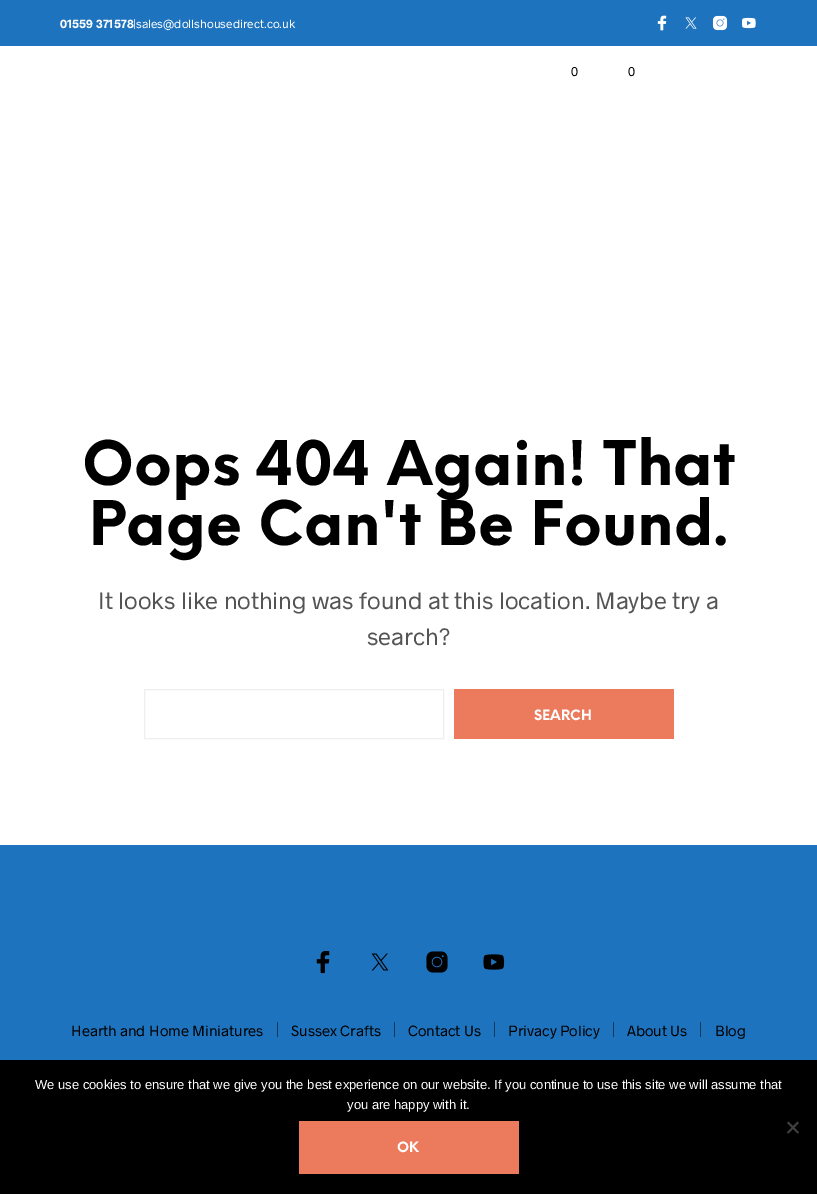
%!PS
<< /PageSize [817 1194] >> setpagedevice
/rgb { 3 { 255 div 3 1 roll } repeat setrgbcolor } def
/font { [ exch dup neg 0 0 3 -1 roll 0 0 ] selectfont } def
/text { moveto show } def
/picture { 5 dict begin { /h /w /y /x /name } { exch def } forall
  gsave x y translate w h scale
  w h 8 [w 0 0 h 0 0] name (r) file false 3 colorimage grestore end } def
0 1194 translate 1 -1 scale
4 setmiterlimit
255 255 255 rgb
0 0 817 1194 rectfill
30 115 190 rgb
0 0 817 46 rectfill
(img_01.rgb) 657 15 10 16 picture
(img_02.rgb) 685 17 12 12 picture
(img_03.rgb) 712 15 16 16 picture
(img_04.rgb) 742 17 14 12 picture
238 238 238 rgb
144.5 689.5 299 49 rectstroke
236 122 92 rgb
454 689 220 50 rectfill
30 115 190 rgb
0 845 817 215 rectfill
(img_05.rgb) 316 951 14 23 picture
(img_06.rgb) 371 953 18 18 picture
(img_07.rgb) 426 951 22 22 picture
(img_08.rgb) 483 954 22 16 picture
15 58 95 rgb
277 1022 1 15 rectfill
394 1022 1 15 rectfill
494 1022 1 15 rectfill
613 1022 1 15 rectfill
700 1022 1 15 rectfill
0 0 0 rgb
0 1060 817 134 rectfill
64 64 64 rgb
797.5 1121.5 moveto 1.5 1.5 rlineto -10.5 10.5 rlineto -1.5 -1 rlineto closepath fill
787 1123 moveto 1.5 -1.5 rlineto 10.5 11 rlineto -1.5 1 rlineto closepath fill
236 122 92 rgb
299 1121 220 53 rectfill
/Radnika-Bold 12 font
255 255 255 rgb
(01559 371578) 60 28 text
/Radnika-Regular 12 font
(|sales@dollshousedirect.co.uk) 133 28 text
/Radnika-Regular 13 font
0 0 0 rgb
(0) 571 76 text
(0) 628 76 text
/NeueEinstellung-Bold 60 font
(Oops 404 Again! That) 82 485 text
(Page Can't Be Found.) 89 545 text
/Radnika-Regular 24 font
84 84 84 rgb
(It looks like nothing was found at this location. Maybe try a) 98 609 text
(search?) 367 645 text
/NeueEinstellung-Bold 14 font
255 255 255 rgb
(SEARCH) 534 720 text
/Radnika-Regular 15 font
0 0 0 rgb
(Hearth and Home Miniatures) 71 1036 text
(Sussex Crafts) 291 1036 text
(Contact Us) 408 1036 text
(Privacy Policy) 508 1036 text
(About Us) 627 1036 text
(Blog) 715 1036 text
/LiberationSans-Regular 13 font
255 255 255 rgb
(We use cookies to ensure that we give you the best experience on our website. If you continue to use this site we will assume that) 35 1089 text
(you are happy with it.) 347 1109 text
/NeueEinstellung-Bold 14 font
(OK) 397 1152 text
showpage
